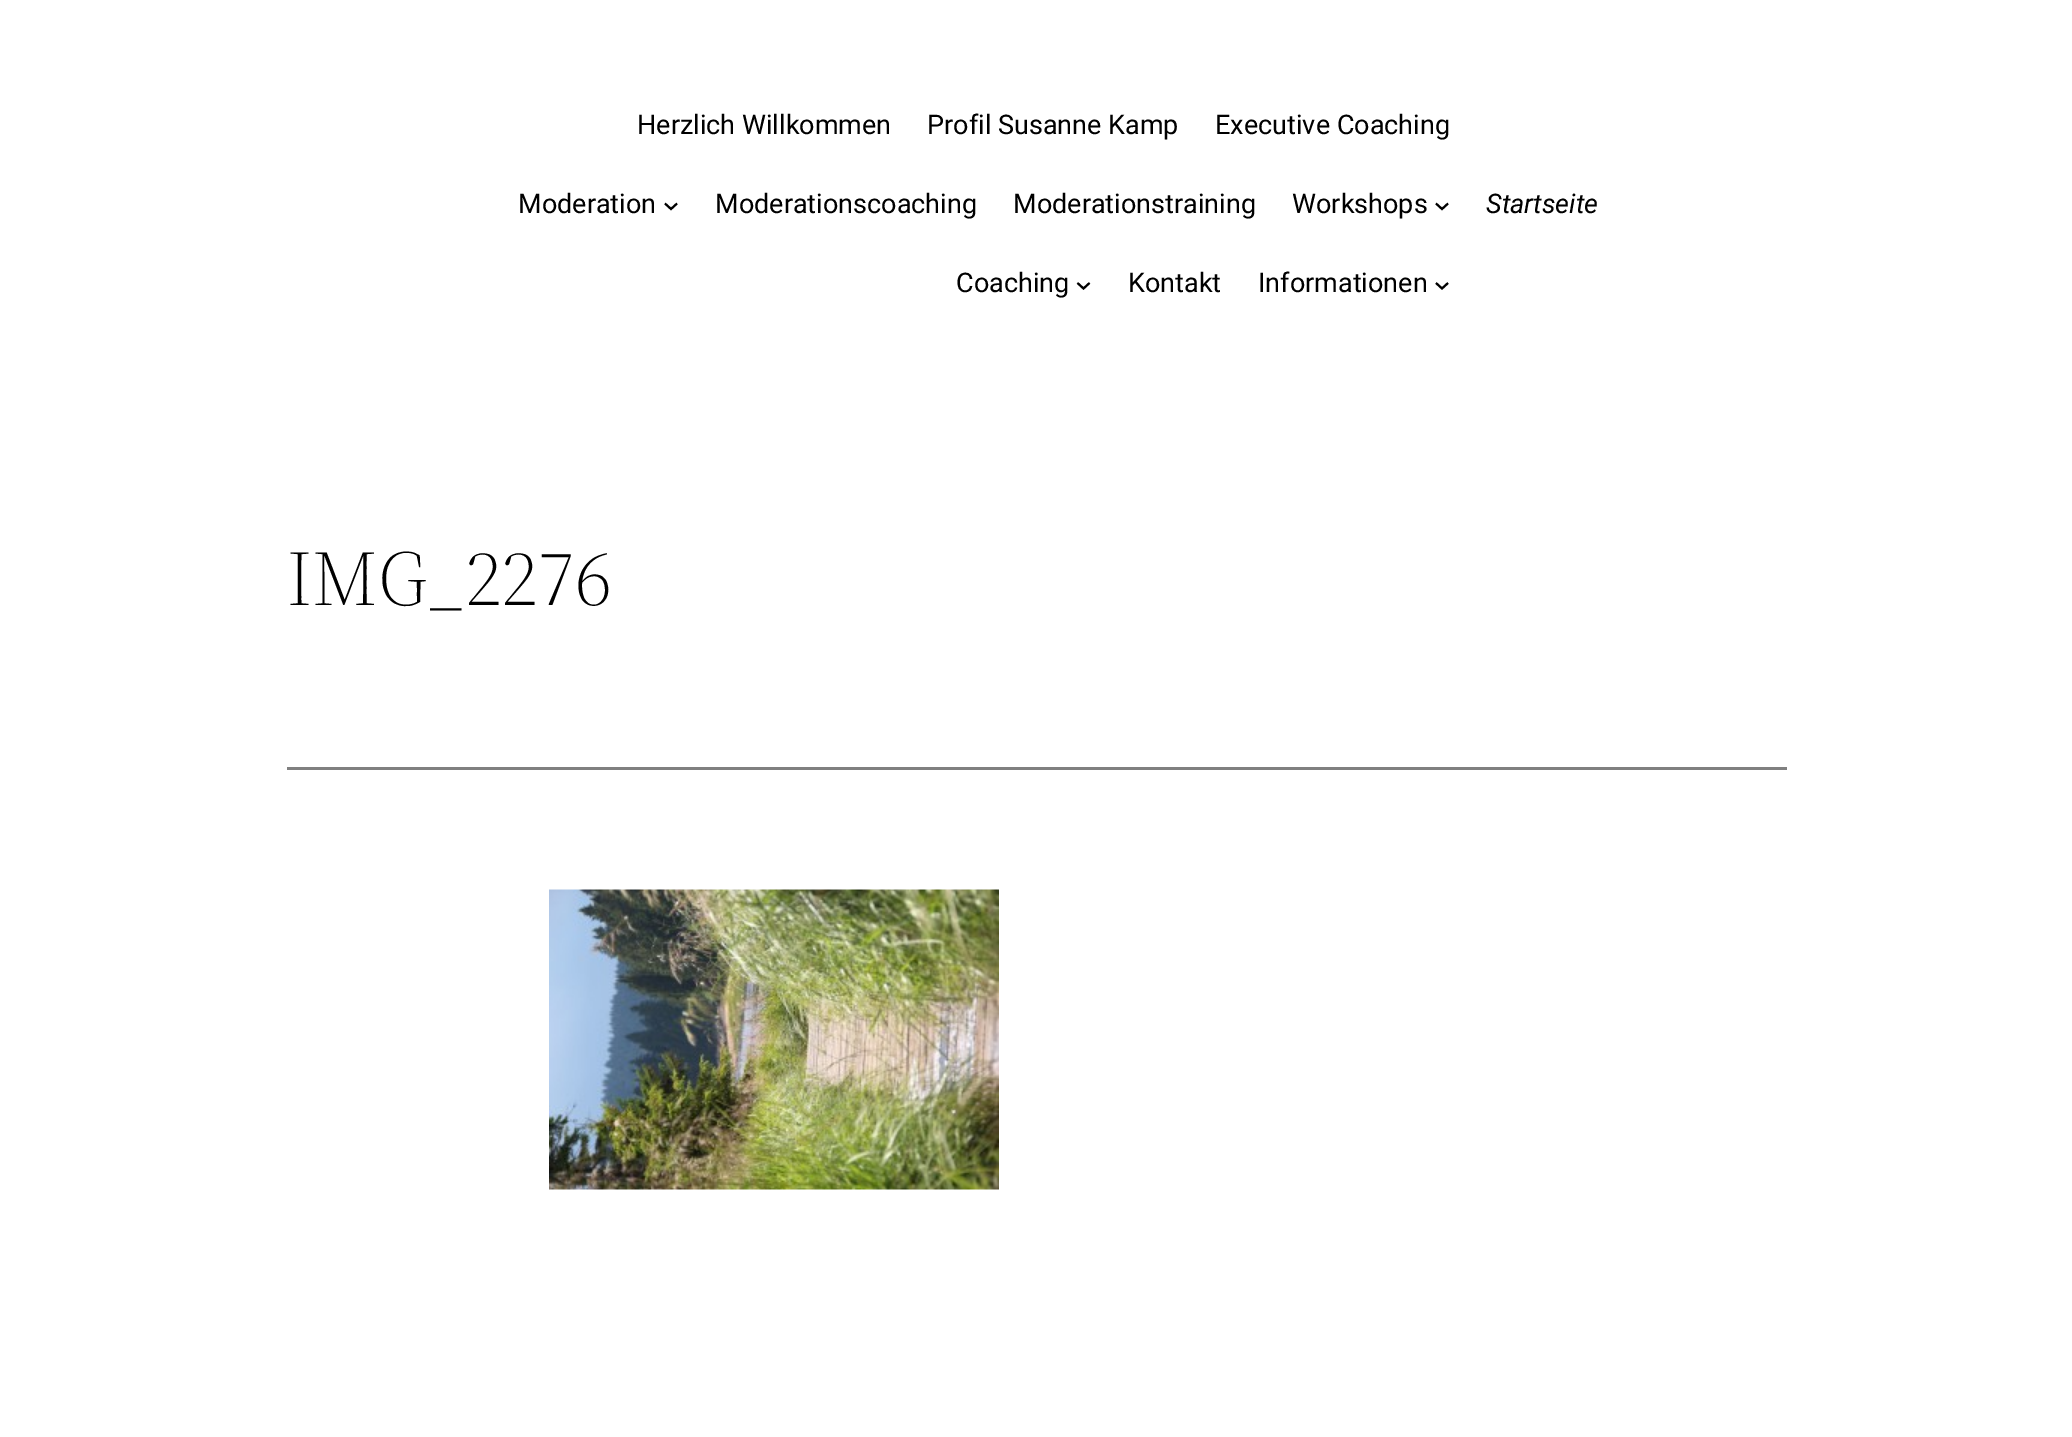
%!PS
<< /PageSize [2072 1437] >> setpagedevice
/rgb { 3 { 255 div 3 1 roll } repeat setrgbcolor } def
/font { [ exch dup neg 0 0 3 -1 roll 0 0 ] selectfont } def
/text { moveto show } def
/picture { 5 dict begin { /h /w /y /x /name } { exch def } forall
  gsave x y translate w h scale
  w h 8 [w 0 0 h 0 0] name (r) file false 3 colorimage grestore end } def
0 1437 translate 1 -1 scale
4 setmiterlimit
255 255 255 rgb
0 0 2072 1437 rectfill
0 0 0 rgb
2 setlinewidth
665 203.5 moveto 6 5.5 rlineto 6 -5.5 rlineto stroke
1436 203.5 moveto 6 5.5 rlineto 6 -5.5 rlineto stroke
1077.5 283 moveto 6 5.5 rlineto 6 -5.5 rlineto stroke
1436 283 moveto 6 5.5 rlineto 6 -5.5 rlineto stroke
128 128 128 rgb
287 767 1500 3 rectfill
(img_01.rgb) 549 889 450 301 picture
/Roboto-Regular 27 font
0 0 0 rgb
(Herzlich Willkommen) 637 134 text
(Profil Susanne Kamp) 927 134 text
(Executive Coaching) 1215 134 text
(Moderation) 518 213 text
(Moderationscoaching) 715 213 text
(Moderationstraining) 1013 213 text
(Workshops) 1292 213 text
(Coaching) 956 292 text
(Kontakt) 1128 292 text
(Informationen) 1258 292 text
/Roboto-Italic 27 font
(Startseite) 1486 213 text
/SourceSerif4-Light 78 font
(IMG_2276) 287 605 text
showpage
